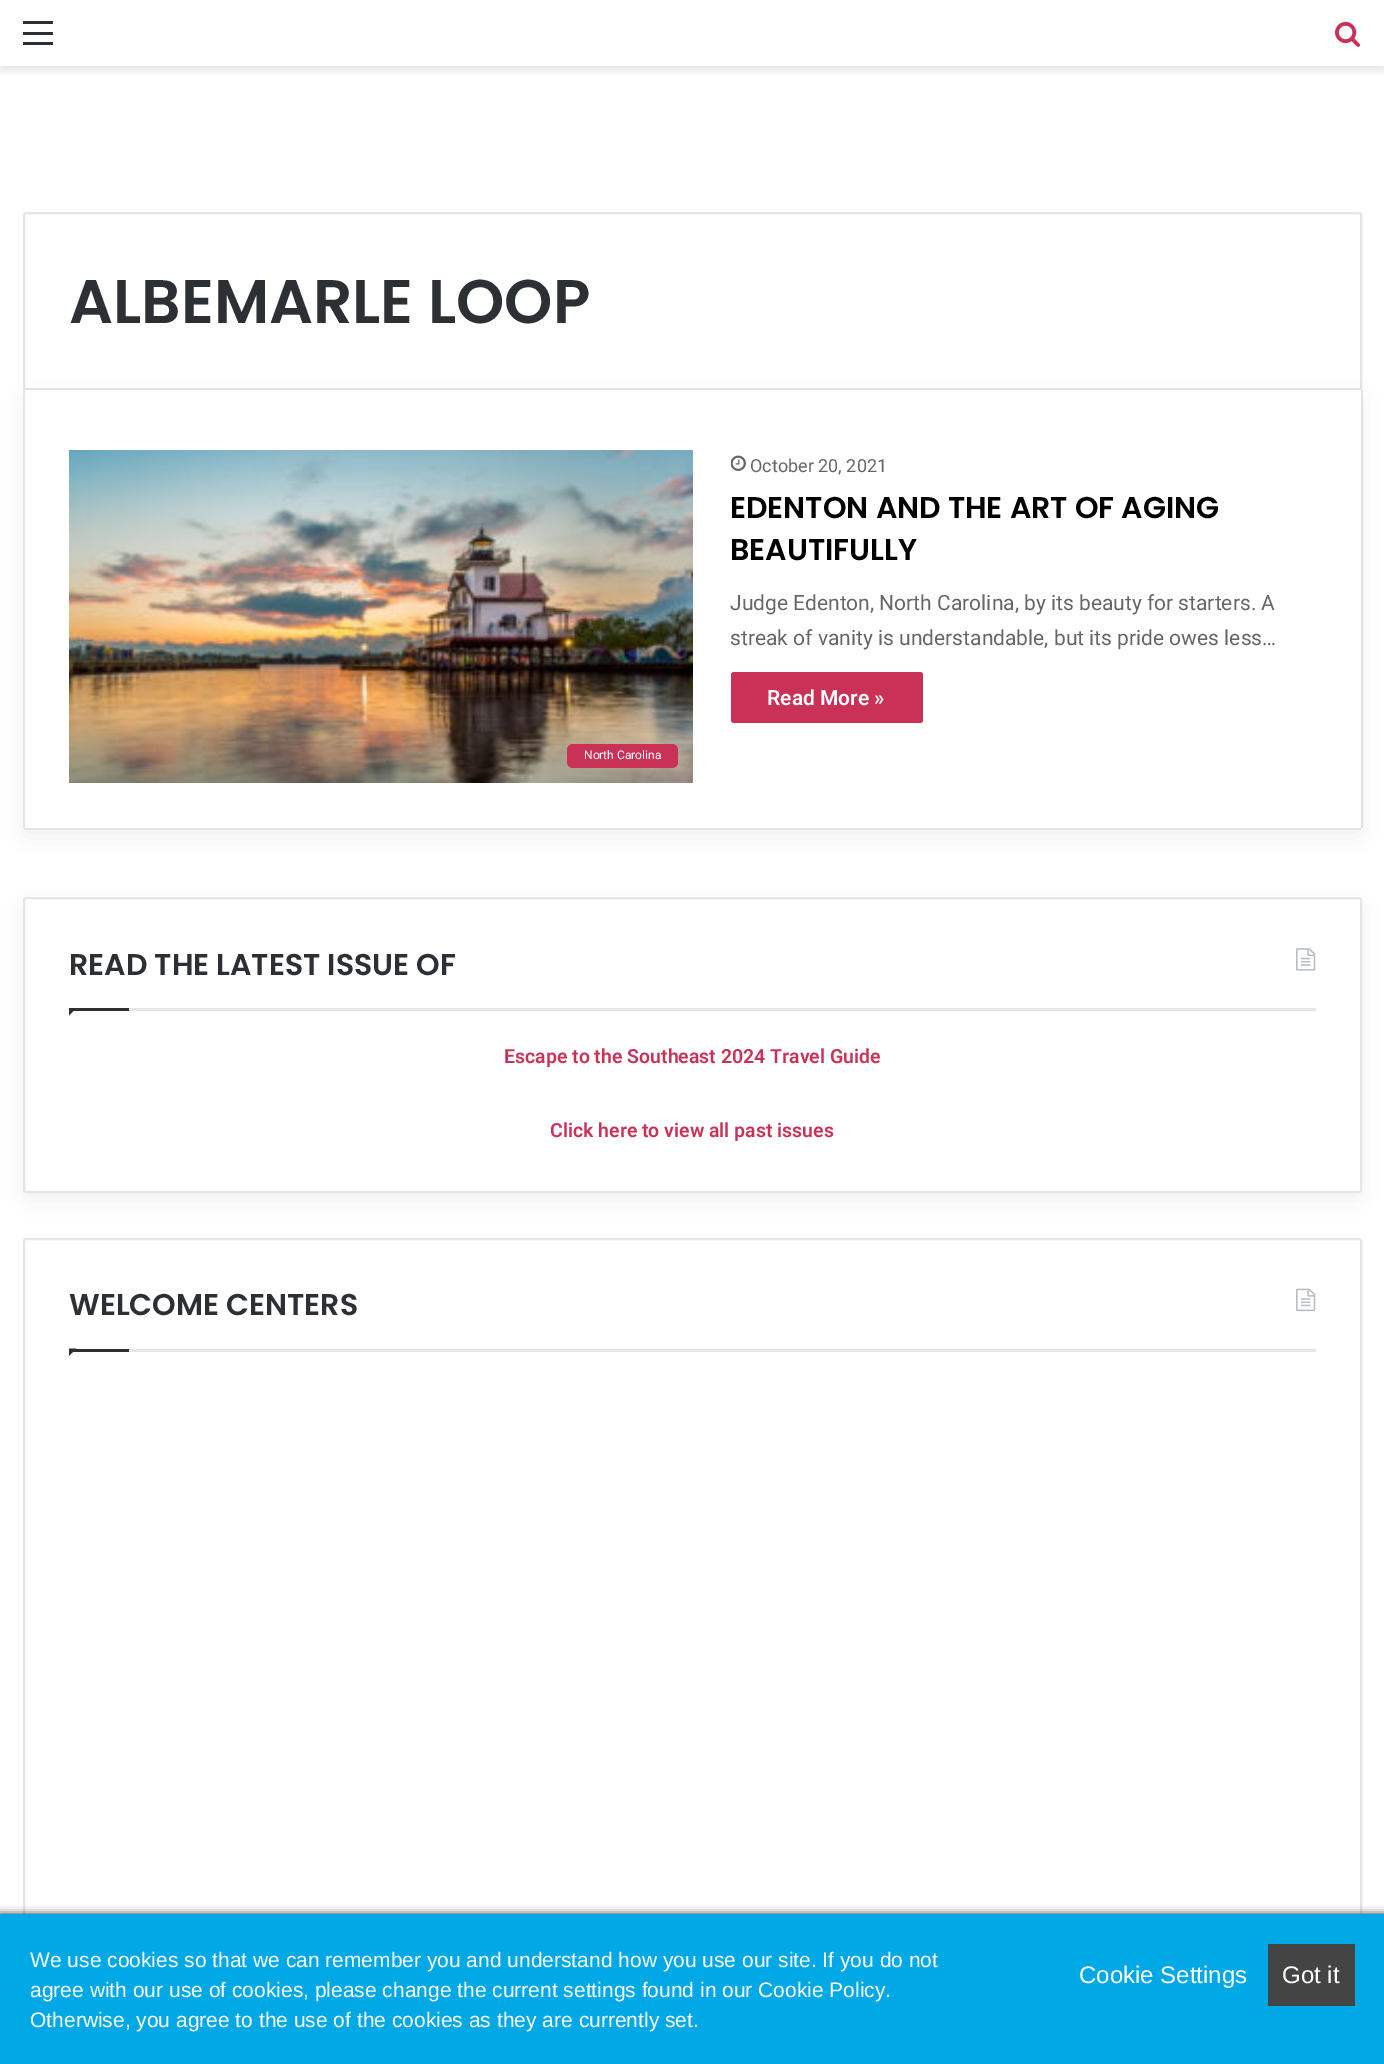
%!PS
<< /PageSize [1384 2064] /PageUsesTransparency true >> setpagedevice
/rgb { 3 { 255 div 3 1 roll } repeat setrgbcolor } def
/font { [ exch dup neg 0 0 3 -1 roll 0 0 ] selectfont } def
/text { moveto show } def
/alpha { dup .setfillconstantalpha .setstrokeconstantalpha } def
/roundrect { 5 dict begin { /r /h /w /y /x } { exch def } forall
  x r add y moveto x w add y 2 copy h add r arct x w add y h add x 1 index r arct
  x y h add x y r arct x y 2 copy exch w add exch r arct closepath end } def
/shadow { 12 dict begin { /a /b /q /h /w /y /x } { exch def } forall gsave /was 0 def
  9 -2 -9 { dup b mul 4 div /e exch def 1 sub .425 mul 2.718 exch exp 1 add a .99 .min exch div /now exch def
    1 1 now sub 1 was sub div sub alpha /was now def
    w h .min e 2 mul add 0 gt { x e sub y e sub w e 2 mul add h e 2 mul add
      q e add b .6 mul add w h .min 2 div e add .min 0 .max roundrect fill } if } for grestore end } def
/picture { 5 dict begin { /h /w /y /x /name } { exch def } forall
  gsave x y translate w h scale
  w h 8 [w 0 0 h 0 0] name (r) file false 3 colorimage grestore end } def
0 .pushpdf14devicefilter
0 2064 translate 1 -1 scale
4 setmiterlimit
255 255 255 rgb
0 0 1384 2064 rectfill
gsave
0 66 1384 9 rectclip
0 0 0 rgb
0 5 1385 66 0 5 0.1 shadow
grestore
44 47 52 rgb
23 32 30 3 rectfill
23 21 30 3 rectfill
23 42 30 3 rectfill
(img_01.rgb) 1335 21 25 26 picture
229 229 229 rgb
2 setlinewidth
26 213 moveto 1333 0 rlineto 1 0 2 1 2 2 rcurveto 0 174 rlineto -1337 0 rlineto 0 -174 rlineto 0 -1 1 -2 2 -2 rcurveto closepath stroke
0 0 0 rgb
23 398 1339 439 3 11 0.05 shadow
255 255 255 rgb
23 390 moveto 1339 0 rlineto 0 437 rlineto 0 1.5 -1.5 3 -3 3 rcurveto -1333 0 rlineto -1.5 0 -3 -1.5 -3 -3 rcurveto closepath fill
0.1 alpha
0 0 0 rgb
1361 390 2 438 rectfill
1 alpha
229 229 229 rgb
24 828 1337 2 rectfill
230 230 230 rgb
23 390 2 438 rectfill
(img_02.rgb) 731 455 15 16 picture
201 50 86 rgb
731 672 192 51 3 roundrect fill
(img_03.rgb) 69 450 624 333 picture
567 744 111 24 6 roundrect fill
0 0 0 rgb
23 905 1339 295 3 11 0.05 shadow
255 255 255 rgb
24 898 1337 294 2 roundrect gsave fill grestore
229 229 229 rgb
stroke
230 230 230 rgb
129 1008 1187 3 rectfill
(img_04.rgb) 1296 948 20 23 picture
44 47 52 rgb
69 1008 moveto 7.5 0 rlineto -7.5 7.5 rlineto closepath fill
69 1008 60 3 rectfill
229 229 229 rgb
24 1239 1337 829 2 roundrect stroke
230 230 230 rgb
129 1349 1187 3 rectfill
(img_05.rgb) 1296 1288 20 24 picture
44 47 52 rgb
69 1348.5 moveto 7.5 0 rlineto -7.5 7.5 rlineto closepath fill
69 1349 60 3 rectfill
0 0 0 rgb
0 1914 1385 150 0 4 0.8 shadow
1 168 230 rgb
0 1914 1384 150 rectfill
68 68 68 rgb
1268 1944 87 62 rectfill
/Poppins-SemiBold 61.5 font
44 47 52 rgb
(ALBEMARLE LOOP) 69 323 text
/Roboto-Regular 18 font
102 102 102 rgb
(October 20, 2021) 750 472 text
/Poppins-SemiBold 30 font
0 0 0 rgb
(EDENTON AND THE ART OF AGING) 730 518 text
(BEAUTIFULLY) 730 560 text
/Roboto-Regular 21 font
102 102 102 rgb
(Judge Edenton, North Carolina, by its beauty for starters. A) 730 610 text
(streak of vanity is understandable, but its pride owes less…) 730 645 text
/Roboto-SemiBold 21 font
255 255 255 rgb
(Read More ») 767 705 text
/Roboto-Regular 12 font
(North Carolina) 584 759 text
/Poppins-SemiBold 30 font
44 47 52 rgb
(READ THE LATEST ISSUE OF) 69 975 text
/Roboto-SemiBold 19.5 font
201 50 86 rgb
(Escape to the Southeast 2024 Travel Guide) 504 1063 text
(Click here to view all past issues) 550 1137 text
/Poppins-SemiBold 30 font
44 47 52 rgb
(WELCOME CENTERS) 69 1315 text
/LiberationSans-Regular 21 font
255 255 255 rgb
(We use cookies so that we can remember you and understand how you use our site. If you do not) 30 1967 text
(agree with our use of cookies, please change the current settings found in our Cookie Policy.) 30 1997 text
(Otherwise, you agree to the use of the cookies as they are currently set.) 30 2027 text
/LiberationSans-Regular 24 font
(Cookie Settings) 1079 1983 text
(Got it) 1282 1983 text
.poppdf14devicefilter showpage
